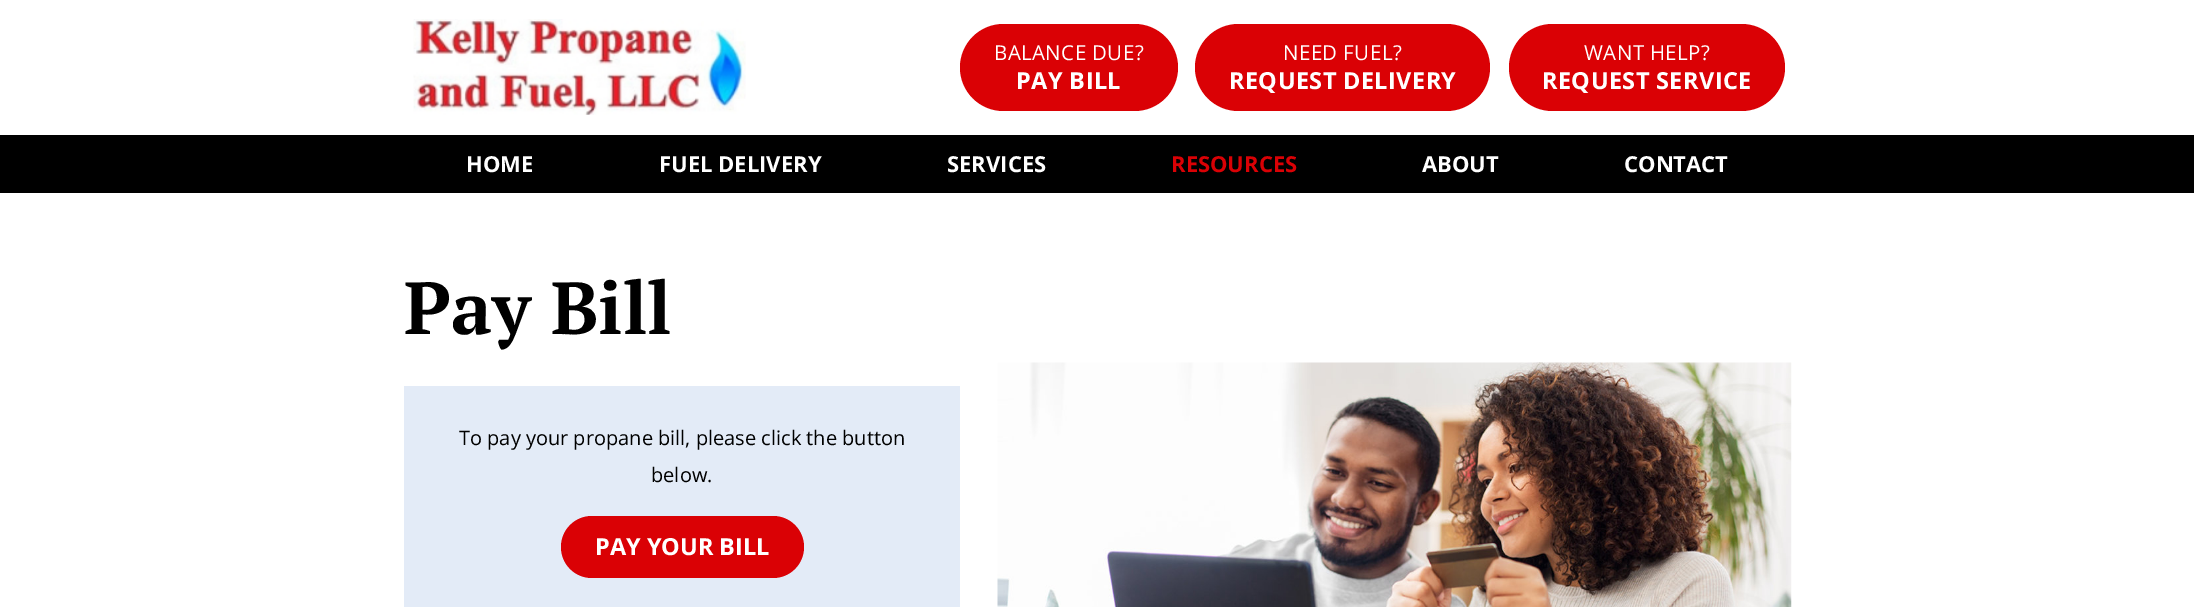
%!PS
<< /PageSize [2194 607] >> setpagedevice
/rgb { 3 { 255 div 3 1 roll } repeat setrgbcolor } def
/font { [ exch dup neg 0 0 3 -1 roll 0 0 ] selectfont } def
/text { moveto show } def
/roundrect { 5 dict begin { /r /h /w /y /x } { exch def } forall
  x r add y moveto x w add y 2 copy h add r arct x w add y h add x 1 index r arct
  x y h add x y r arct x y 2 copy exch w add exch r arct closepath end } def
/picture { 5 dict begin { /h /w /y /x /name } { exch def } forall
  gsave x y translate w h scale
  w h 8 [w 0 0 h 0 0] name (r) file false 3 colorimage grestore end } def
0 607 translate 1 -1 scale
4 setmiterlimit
255 255 255 rgb
0 0 2194 607 rectfill
(img_01.rgb) 413 19 333 96 picture
218 1 5 rgb
960 24 218 87 43.5 roundrect fill
1195 24 295 87 43.5 roundrect fill
1509 24 276 87 43.5 roundrect fill
0 0 0 rgb
0 135 2194 58 rectfill
227 235 247 rgb
404 386 556 221 rectfill
218 1 5 rgb
561 516 243 62 31 roundrect fill
(img_02.rgb) 997 362 795 245 picture
/OpenSans-Regular 20.5 font
255 255 255 rgb
994 60 moveto 0.4 0 (BALANCE DUE?) ashow
/OpenSans-Bold 23.5 font
1016 89 moveto 0.4 0 (PAY BILL) ashow
/OpenSans-Regular 20.5 font
1283 60 moveto 0.4 0 (NEED FUEL?) ashow
/OpenSans-Bold 23.5 font
1229 89 moveto 0.4 0 (REQUEST DELIVERY) ashow
/OpenSans-Regular 20.5 font
1584 60 moveto 0.4 0 (WANT HELP?) ashow
/OpenSans-Bold 23.5 font
1542 89 moveto 0.4 0 (REQUEST SERVICE) ashow
/OpenSans-Bold 22 font
(HOME) 466 172 text
(FUEL DELIVERY) 659 172 text
(SERVICES) 947 172 text
218 1 5 rgb
(RESOURCES) 1171 172 text
255 255 255 rgb
(ABOUT) 1422 172 text
(CONTACT) 1624 172 text
/PTSerif-Bold 73.5 font
0 0 0 rgb
(Pay Bill) 404 334 text
/OpenSans-Regular 20 font
(To pay your propane bill, please click the button) 459 445 text
(below.) 651 482 text
/OpenSans-Bold 23.5 font
255 255 255 rgb
(PAY YOUR BILL) 595 555 text
showpage
